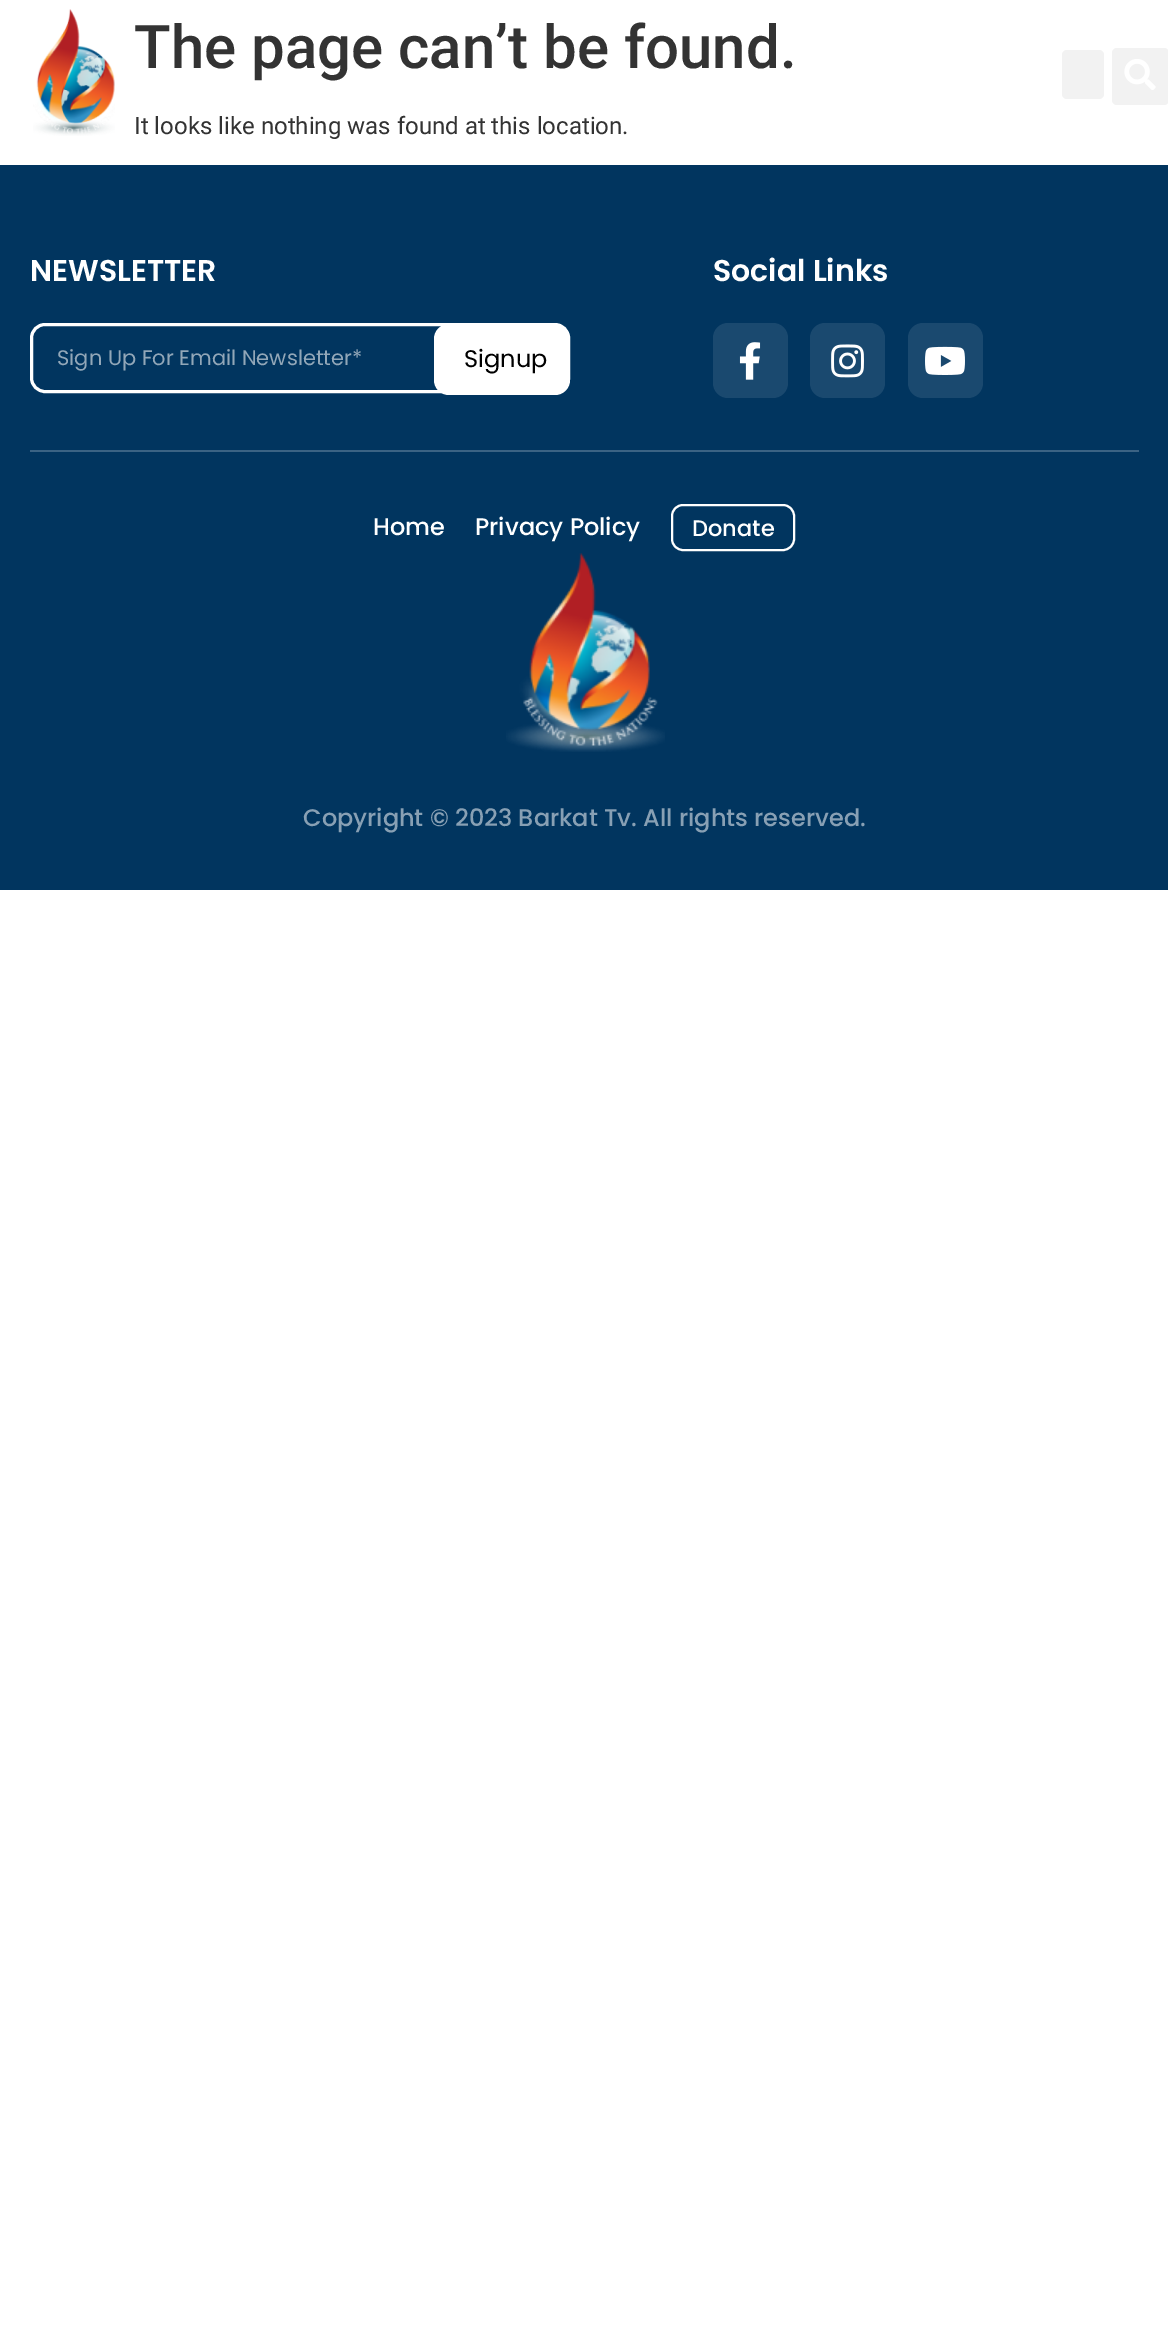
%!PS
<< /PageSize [1168 2327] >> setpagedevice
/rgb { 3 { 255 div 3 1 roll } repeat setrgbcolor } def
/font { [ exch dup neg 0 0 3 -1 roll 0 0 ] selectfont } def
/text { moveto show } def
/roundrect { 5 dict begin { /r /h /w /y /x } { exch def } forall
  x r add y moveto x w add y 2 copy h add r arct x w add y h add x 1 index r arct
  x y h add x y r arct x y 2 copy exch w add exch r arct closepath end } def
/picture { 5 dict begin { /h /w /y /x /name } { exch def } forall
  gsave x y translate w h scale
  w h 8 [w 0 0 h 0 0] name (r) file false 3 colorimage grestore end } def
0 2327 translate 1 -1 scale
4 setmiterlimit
255 255 255 rgb
0 0 1168 2327 rectfill
(img_01.rgb) 33 9 82 127 picture
242 242 242 rgb
1062 50 42 49 5 roundrect fill
1112 48 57 57 5 roundrect fill
(img_02.rgb) 1124 59 32 31 picture
1 53 95 rgb
0 165 1168 725 rectfill
255 255 255 rgb
3 setlinewidth
31.5 324.5 537 67 13.5 roundrect stroke
434 324 136 71 15 roundrect fill
26 73 111 rgb
713 323 75 75 15 roundrect fill
(img_03.rgb) 739 342 22 38 picture
810 323 75 75 15 roundrect fill
(img_04.rgb) 831 344 33 34 picture
908 323 75 75 15 roundrect fill
(img_05.rgb) 925 346 40 29 picture
59 99 132 rgb
30 450 1109 2 rectfill
255 255 255 rgb
2 setlinewidth
672 505 122 45 11 roundrect stroke
(img_06.rgb) 506 553 159 199 picture
/Roboto-Medium 60 font
51 51 51 rgb
(The page can’t be found.) 134 68 text
/Roboto-Regular 24 font
(It looks like nothing was found at this location.) 134 134 text
/Poppins-SemiBold 30 font
255 255 255 rgb
(NEWSLETTER) 30 281 text
/Poppins-Regular 21 font
146 167 184 rgb
(Sign Up For Email Newsletter*) 57 365 text
/Poppins-Regular 24 font
0 0 0 rgb
(Signup) 464 367 text
/Poppins-SemiBold 30 font
255 255 255 rgb
(Social Links) 713 281 text
/Poppins-Medium 24 font
(Home) 373 535 text
(Privacy Policy) 475 535 text
/Poppins-Medium 22.5 font
(Donate) 692 536 text
/Poppins-Medium 24 font
136 160 180 rgb
(Copyright © 2023 Barkat Tv. All rights reserved.) 303 826 text
showpage
